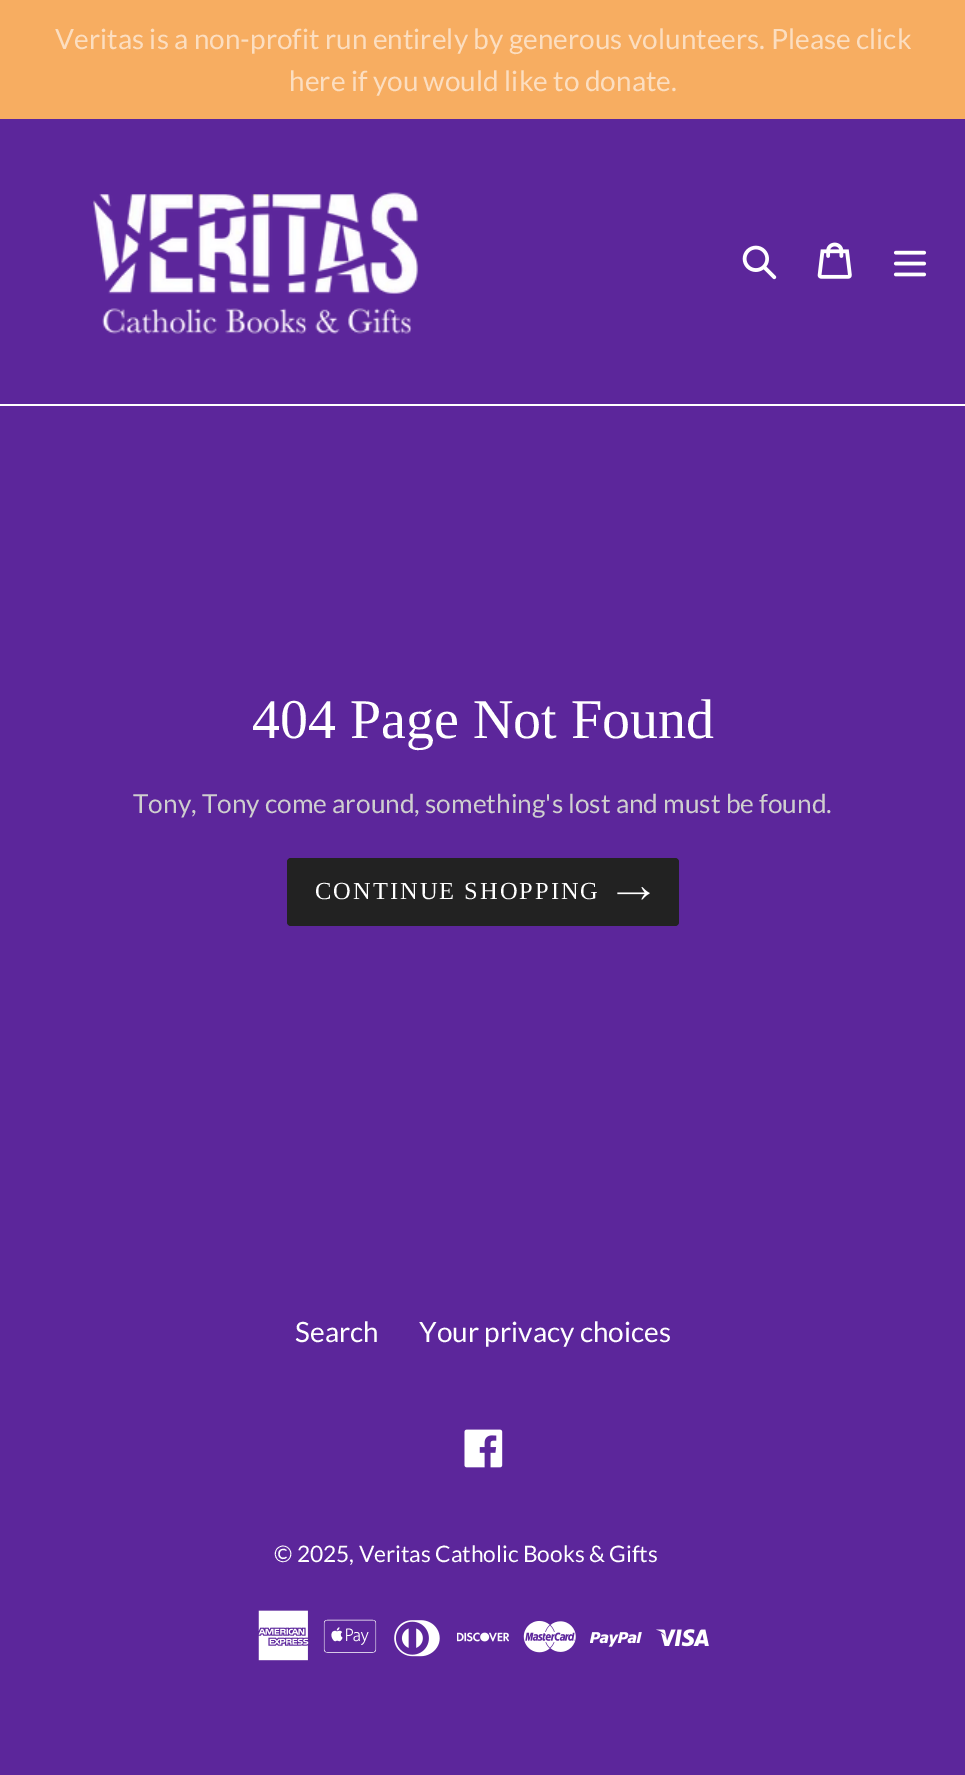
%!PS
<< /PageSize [965 1775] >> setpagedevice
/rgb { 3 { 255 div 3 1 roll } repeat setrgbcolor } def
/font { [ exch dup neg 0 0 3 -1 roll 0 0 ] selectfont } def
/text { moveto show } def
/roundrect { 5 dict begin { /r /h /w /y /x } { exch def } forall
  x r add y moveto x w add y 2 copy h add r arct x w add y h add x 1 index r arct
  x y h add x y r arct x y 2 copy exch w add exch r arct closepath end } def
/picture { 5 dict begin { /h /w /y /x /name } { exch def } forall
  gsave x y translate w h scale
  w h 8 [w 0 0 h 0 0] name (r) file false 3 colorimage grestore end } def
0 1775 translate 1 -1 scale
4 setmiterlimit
92 38 155 rgb
0 0 965 1775 rectfill
247 173 97 rgb
0 0 965 119 rectfill
255 255 255 rgb
0 404 965 2 rectfill
(img_01.rgb) 93 192 326 142 picture
(img_02.rgb) 742 245 35 35 picture
(img_03.rgb) 817 242 35 37 picture
(img_04.rgb) 893 250 34 27 picture
34 34 34 rgb
287 858 392 68 4 roundrect fill
(img_05.rgb) 617 887 33 13 picture
(img_06.rgb) 464 1429 39 39 picture
(img_07.rgb) 258 1610 51 51 picture
(img_08.rgb) 323 1619 54 34 picture
(img_09.rgb) 394 1620 46 37 picture
(img_10.rgb) 457 1632 52 10 picture
(img_11.rgb) 523 1620 53 33 picture
(img_12.rgb) 590 1632 52 15 picture
(img_13.rgb) 656 1629 53 18 picture
/Lato-Regular 28 font
252 222 192 rgb
(Veritas is a non-profit run entirely by generous volunteers. Please click) 55 49 text
(here if you would like to donate.) 289 91 text
/LiberationSerif-Regular 56 font
255 255 255 rgb
(404 Page Not Found) 252 738 text
/Lato-Regular 26.25 font
207 207 207 rgb
(Tony, Tony come around, something's lost and must be found.) 133 813 text
/LiberationSerif-Regular 24.5 font
255 255 255 rgb
315 899 moveto 2 0 (CONTINUE SHOPPING) ashow
/Lato-Regular 28 font
(Search) 295 1342 text
(Your privacy choices) 419 1342 text
/Lato-Regular 22.75 font
(© 2025, Veritas Catholic Books & Gifts) 274 1562 text
showpage
